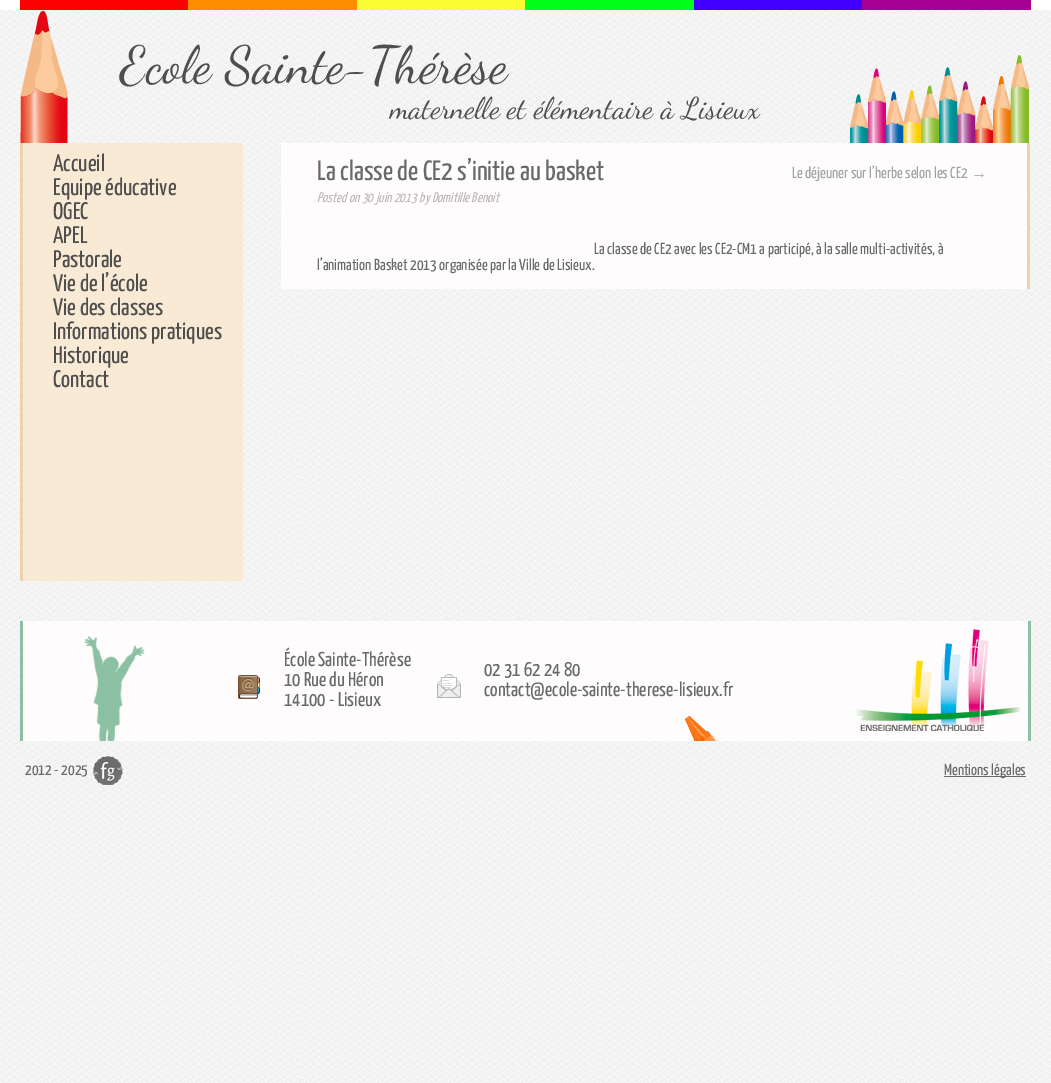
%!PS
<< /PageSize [1051 1083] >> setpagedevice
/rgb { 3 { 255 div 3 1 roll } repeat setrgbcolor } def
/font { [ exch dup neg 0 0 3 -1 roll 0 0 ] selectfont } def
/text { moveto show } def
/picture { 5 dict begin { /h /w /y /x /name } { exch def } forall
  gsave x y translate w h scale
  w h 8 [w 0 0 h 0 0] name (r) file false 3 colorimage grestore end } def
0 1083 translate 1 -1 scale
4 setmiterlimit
255 255 255 rgb
0 0 1051 1083 rectfill
(img_01.rgb) 0 10 1051 1073 picture
255 0 0 rgb
20 0 168 10 rectfill
255 141 0 rgb
188 0 169 10 rectfill
248 252 49 rgb
357 0 168 10 rectfill
0 255 26 rgb
525 0 169 10 rectfill
65 0 255 rgb
694 0 168 10 rectfill
165 0 145 rgb
862 0 169 10 rectfill
(img_02.rgb) 20 11 48 132 picture
(img_03.rgb) 850 55 179 88 picture
248 234 212 rgb
23 143 220 438 rectfill
235 211 171 rgb
20 143 3 438 rectfill
254 252 252 rgb
281 143 746 146 rectfill
235 211 171 rgb
1027 143 3 146 rectfill
254 252 252 rgb
23 621 1005 120 rectfill
140 192 162 rgb
1028 621 3 120 rectfill
20 621 3 120 rectfill
(img_04.rgb) 84 636 61 105 picture
(img_05.rgb) 237 675 23 24 picture
(img_06.rgb) 437 674 24 24 picture
(img_07.rgb) 855 629 166 102 picture
(img_08.rgb) 685 716 32 25 picture
(img_09.rgb) 93 756 30 29 picture
105 105 105 rgb
944 776 82 1 rectfill
/DancingScript-Regular 52 font
78 78 78 rgb
(Ecole Sainte-Thérèse) 120 82 text
/DancingScript-Regular 30 font
(maternelle et élémentaire à Lisieux) 390 118 text
/YanoneKaffeesatz-ExtraLight 24 font
(Accueil) 53 171 text
(Equipe éducative) 53 195 text
(OGEC) 53 219 text
(APEL) 53 243 text
(Pastorale) 53 267 text
(Vie de l’école) 53 291 text
(Vie des classes) 53 315 text
(Informations pratiques) 53 339 text
(Historique) 53 363 text
(Contact) 53 387 text
/YanoneKaffeesatz-ExtraLight 28 font
105 105 105 rgb
(La classe de CE2 s’initie au basket) 317 180 text
/YanoneKaffeesatz-ExtraLight 16 font
163 163 163 rgb
(Le déjeuner sur l’herbe selon les CE2) 792 178 text
/LiberationSans-Regular 16 font
(→) 971 178 text
/YanoneKaffeesatz-ExtraLightItalic 14 font
186 184 184 rgb
(Posted on 30 juin 2013 by Domitille Benoit) 317 202 text
/YanoneKaffeesatz-ExtraLight 16 font
105 105 105 rgb
(La classe de CE2 avec les CE2-CM1 a participé, à la salle multi-activités, à) 594 254 text
(l’animation Basket 2013 organisée par la Ville de Lisieux.) 317 270 text
/YanoneKaffeesatz-ExtraLight 20 font
(École Sainte-Thérèse) 284 666 text
(10 Rue du Héron) 284 686 text
(14100 - Lisieux) 284 706 text
(02 31 62 24 80) 484 676 text
(contact@ecole-sainte-therese-lisieux.fr) 484 696 text
/YanoneKaffeesatz-ExtraLight 16 font
(2012 - 2025) 25 775 text
(Mentions légales) 944 775 text
showpage
